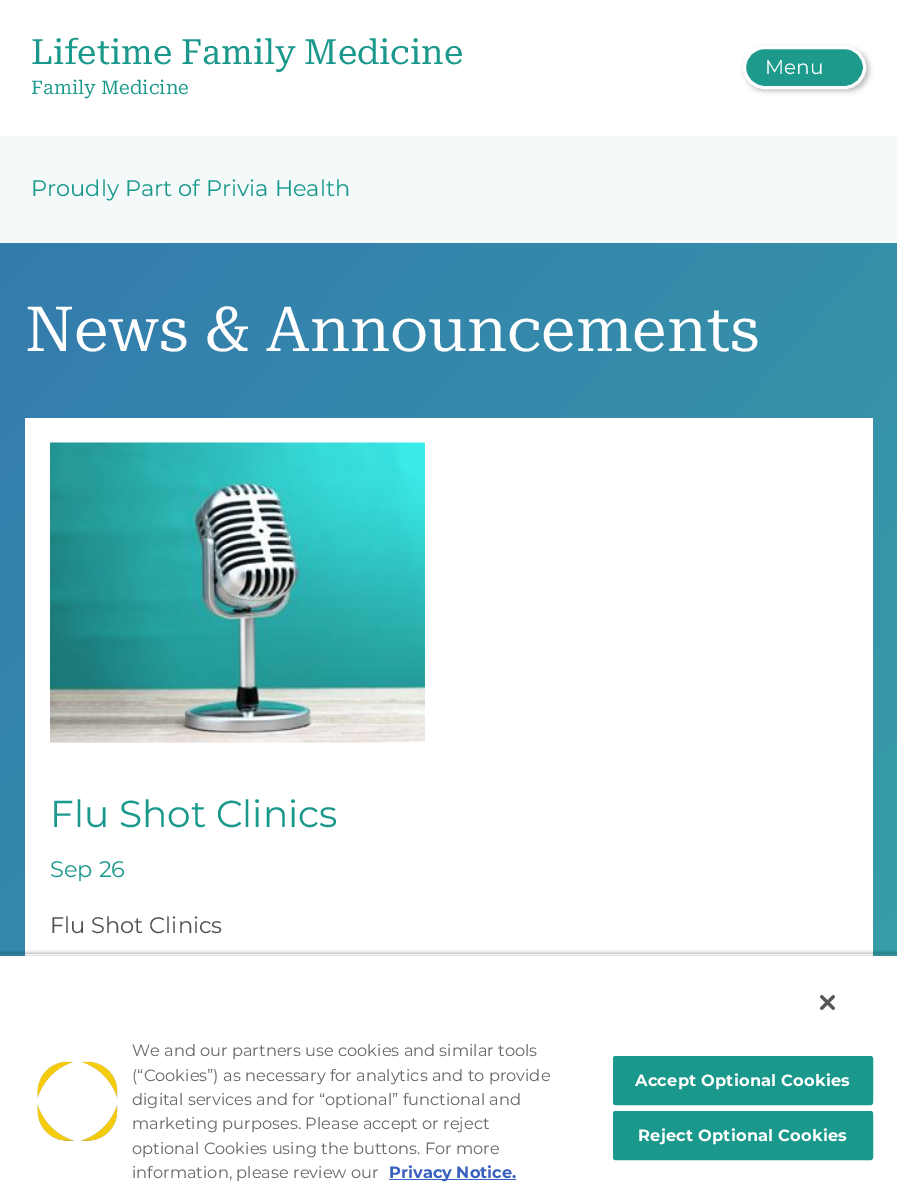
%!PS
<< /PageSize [897 1185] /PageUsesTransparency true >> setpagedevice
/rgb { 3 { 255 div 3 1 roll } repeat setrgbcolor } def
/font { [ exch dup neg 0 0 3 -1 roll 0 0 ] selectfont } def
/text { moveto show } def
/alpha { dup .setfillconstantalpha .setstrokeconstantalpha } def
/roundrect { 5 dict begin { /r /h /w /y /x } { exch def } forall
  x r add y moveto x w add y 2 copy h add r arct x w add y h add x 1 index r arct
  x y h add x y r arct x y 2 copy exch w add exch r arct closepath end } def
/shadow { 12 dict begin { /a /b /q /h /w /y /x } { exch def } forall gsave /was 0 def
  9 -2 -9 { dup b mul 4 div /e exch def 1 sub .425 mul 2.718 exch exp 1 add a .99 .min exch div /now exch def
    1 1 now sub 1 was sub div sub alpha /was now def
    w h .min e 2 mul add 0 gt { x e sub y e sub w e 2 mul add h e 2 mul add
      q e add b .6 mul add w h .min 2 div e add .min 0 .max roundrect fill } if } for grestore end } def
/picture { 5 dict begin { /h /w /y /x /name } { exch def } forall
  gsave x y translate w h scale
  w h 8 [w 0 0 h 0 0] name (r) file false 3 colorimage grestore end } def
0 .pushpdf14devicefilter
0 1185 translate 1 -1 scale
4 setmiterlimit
255 255 255 rgb
0 0 897 1185 rectfill
0 0 0 rgb
745 49 124 42 21 2.5 0.25 shadow
30 154 141 rgb
744.5 47.5 120 40 20 roundrect gsave fill grestore
255 255 255 rgb
3 setlinewidth
stroke
244 250 250 rgb
0 136 897 107 rectfill
gsave 0 243 moveto 897 0 rlineto 0 713 rlineto -897 0 rlineto closepath clip newpath
<< /ShadingType 2 /ColorSpace /DeviceRGB /Coords [-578 471 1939 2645] /Extend [true true] /Function << /FunctionType 3 /Domain [0 1] /Functions [<< /FunctionType 2 /Domain [0 1] /C0 [0.2 0.451 0.69] /C1 [0.216 0.643 0.643] /N 1 >> << /FunctionType 2 /Domain [0 1] /C0 [0.216 0.643 0.643] /C1 [0.196 1 0.918] /N 1 >>] /Bounds [0.5] /Encode [0 1 0 1] >> >> shfill grestore
255 255 255 rgb
25 418 848 538 rectfill
(img_01.rgb) 50 442 375 301 picture
gsave
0 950 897 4 rectclip
0 0 0 rgb
0 954 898 231 0 2.5 0.35 shadow
grestore
0 0 0 rgb
0 956 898 229 0 2.5 0.2 shadow
255 255 255 rgb
0 956 897 229 rectfill
(img_02.rgb) 820 995 15 15 picture
(img_03.rgb) 37 1061 81 80 picture
56 96 190 rgb
389 1179 127 1 rectfill
25 152 139 rgb
613.5 1056.5 259 48 2 roundrect gsave fill grestore
1 setlinewidth
stroke
613.5 1111.5 259 48 2 roundrect gsave fill grestore
stroke
/RobotoSerif-Regular 35 font
(Lifetime Family Medicine) 31 64 text
/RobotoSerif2-Regular 18.75 font
(Family Medicine) 31 94 text
/Montserrat-Regular 20 font
255 255 255 rgb
(Menu) 765 74 text
/Montserrat-Regular 22.5 font
25 152 139 rgb
(Proudly Part of Privia Health) 31 196 text
/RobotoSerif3-Regular 62.5 font
255 255 255 rgb
(News & Announcements) 25 351 text
/Montserrat-Regular 37.5 font
25 152 139 rgb
(Flu Shot Clinics) 50 827 text
/Montserrat-Regular 22.5 font
(Sep 26) 50 877 text
77 81 81 rgb
(Flu Shot Clinics) 50 933 text
/Montserrat-Regular 16.25 font
105 105 105 rgb
(We and our partners use cookies and similar tools) 132 1056 text
(\(“Cookies”\) as necessary for analytics and to provide) 132 1081 text
(digital services and for “optional” functional and) 132 1105 text
(marketing purposes. Please accept or reject) 132 1129 text
(optional Cookies using the buttons. For more) 132 1154 text
(information, please review our) 132 1178 text
/Montserrat-Bold 16.25 font
56 96 190 rgb
(Privacy Notice.) 389 1178 text
255 255 255 rgb
635 1086 moveto 0.2 0 (Accept Optional Cookies) ashow
638 1141 moveto 0.2 0 (Reject Optional Cookies) ashow
.poppdf14devicefilter showpage
